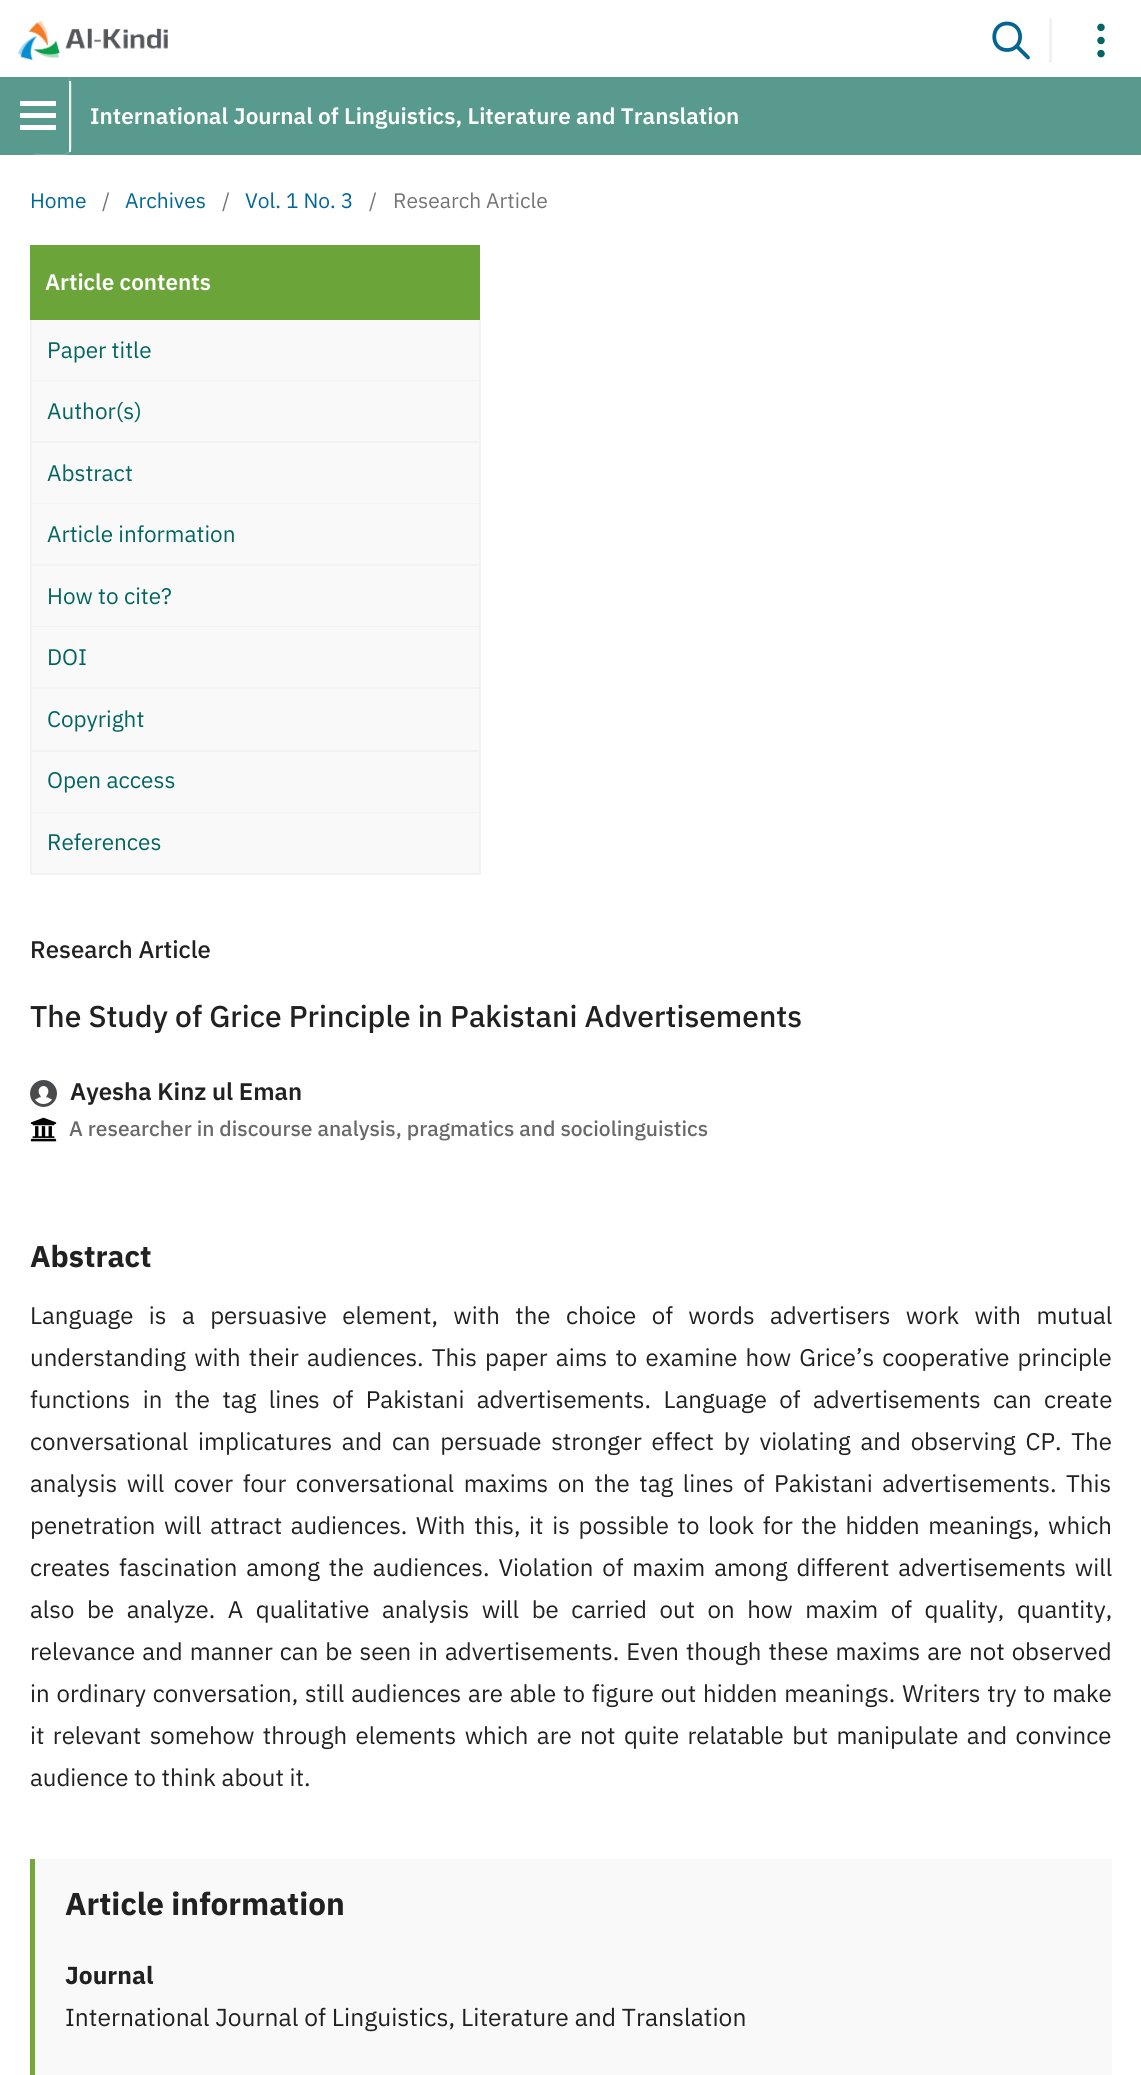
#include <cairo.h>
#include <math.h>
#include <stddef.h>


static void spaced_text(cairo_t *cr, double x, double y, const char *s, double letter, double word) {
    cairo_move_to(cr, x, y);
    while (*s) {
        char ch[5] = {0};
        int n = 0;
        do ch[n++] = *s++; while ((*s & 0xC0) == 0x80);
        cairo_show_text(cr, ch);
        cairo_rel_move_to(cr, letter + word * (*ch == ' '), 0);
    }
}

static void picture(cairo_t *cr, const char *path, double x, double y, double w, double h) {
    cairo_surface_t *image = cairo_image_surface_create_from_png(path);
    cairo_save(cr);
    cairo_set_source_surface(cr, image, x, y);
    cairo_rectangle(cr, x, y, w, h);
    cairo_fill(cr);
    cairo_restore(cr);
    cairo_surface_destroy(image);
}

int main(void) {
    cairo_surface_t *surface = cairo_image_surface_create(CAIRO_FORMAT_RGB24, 1141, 2075);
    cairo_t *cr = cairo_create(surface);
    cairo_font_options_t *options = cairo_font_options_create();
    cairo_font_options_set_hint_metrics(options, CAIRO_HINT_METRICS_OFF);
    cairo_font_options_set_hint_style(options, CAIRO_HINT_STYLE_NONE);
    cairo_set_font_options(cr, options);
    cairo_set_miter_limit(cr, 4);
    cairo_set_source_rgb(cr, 1, 1, 1);
    cairo_paint(cr);
    picture(cr, "img1.png", 18, 21, 150, 39);
    cairo_set_source_rgb(cr, 0.949, 0.949, 0.949);
    cairo_rectangle(cr, 1049, 18, 3, 45);
    cairo_fill(cr);
    cairo_new_path(cr);
    cairo_move_to(cr, 1016.5, 46);
    cairo_line_to(cr, 1028, 57.5);
    cairo_move_to(cr, 1007, 50);
    cairo_curve_to(cr, 990, 50, 990, 23.5, 1007, 23.5);
    cairo_curve_to(cr, 1024.5, 23.5, 1024.5, 50, 1007, 50);
    cairo_close_path(cr);
    cairo_set_source_rgb(cr, 0.008, 0.396, 0.58);
    cairo_set_line_width(cr, 3.8);
    cairo_set_line_cap(cr, CAIRO_LINE_CAP_ROUND);
    cairo_set_line_join(cr, CAIRO_LINE_JOIN_ROUND);
    cairo_stroke(cr);
    picture(cr, "img2.png", 1097, 23, 8, 35);
    cairo_set_source_rgb(cr, 0.345, 0.604, 0.553);
    cairo_rectangle(cr, 0, 77, 1141, 78);
    cairo_fill(cr);
    cairo_set_source_rgb(cr, 0.475, 0.682, 0.643);
    cairo_new_path(cr);
    cairo_move_to(cr, 32, 154);
    cairo_line_to(cr, 35, 155);
    cairo_line_to(cr, 64, 155);
    cairo_curve_to(cr, 68, 155, 72, 151, 72, 147);
    cairo_line_to(cr, 72, 85);
    cairo_curve_to(cr, 72, 82, 70, 79, 67, 77);
    cairo_curve_to(cr, 68, 78, 70, 80, 70, 82);
    cairo_line_to(cr, 70, 149);
    cairo_line_to(cr, 68, 152);
    cairo_line_to(cr, 65, 154);
    cairo_close_path(cr);
    cairo_fill(cr);
    cairo_set_source_rgb(cr, 0.949, 0.949, 0.949);
    cairo_rectangle(cr, 69, 81, 2, 71);
    cairo_fill(cr);
    cairo_set_source_rgb(cr, 1, 1, 1);
    cairo_rectangle(cr, 20, 125, 36, 5);
    cairo_fill(cr);
    cairo_rectangle(cr, 20, 101, 36, 5);
    cairo_fill(cr);
    cairo_rectangle(cr, 20, 113, 36, 5);
    cairo_fill(cr);
    cairo_select_font_face(cr, "IBM Plex Sans SemiBold", CAIRO_FONT_SLANT_NORMAL, CAIRO_FONT_WEIGHT_NORMAL);
    cairo_set_font_size(cr, 22.5);
    cairo_move_to(cr, 90, 124);
    cairo_show_text(cr, "International Journal of Linguistics, Literature and Translation");
    cairo_select_font_face(cr, "IBM Plex Sans", CAIRO_FONT_SLANT_NORMAL, CAIRO_FONT_WEIGHT_NORMAL);
    cairo_set_font_size(cr, 21);
    cairo_set_source_rgb(cr, 0, 0.404, 0.596);
    cairo_move_to(cr, 30, 208);
    cairo_show_text(cr, "Home");
    cairo_set_source_rgb(cr, 0.459, 0.459, 0.459);
    cairo_move_to(cr, 102, 208);
    cairo_show_text(cr, "/");
    cairo_set_source_rgb(cr, 0, 0.404, 0.596);
    cairo_move_to(cr, 125, 208);
    cairo_show_text(cr, "Archives");
    cairo_set_source_rgb(cr, 0.459, 0.459, 0.459);
    cairo_move_to(cr, 222, 208);
    cairo_show_text(cr, "/");
    cairo_set_source_rgb(cr, 0, 0.404, 0.596);
    cairo_move_to(cr, 245, 208);
    cairo_show_text(cr, "Vol. 1 No. 3");
    cairo_set_source_rgb(cr, 0.459, 0.459, 0.459);
    cairo_move_to(cr, 369, 208);
    cairo_show_text(cr, "/");
    cairo_move_to(cr, 393, 208);
    cairo_show_text(cr, "Research Article");
    cairo_set_source_rgb(cr, 0.42, 0.643, 0.224);
    cairo_rectangle(cr, 30, 245, 450, 75);
    cairo_fill(cr);
    cairo_select_font_face(cr, "IBM Plex Sans SemiBold", CAIRO_FONT_SLANT_NORMAL, CAIRO_FONT_WEIGHT_NORMAL);
    cairo_set_font_size(cr, 22.5);
    cairo_set_source_rgb(cr, 1, 1, 1);
    cairo_move_to(cr, 45, 290);
    cairo_show_text(cr, "Article contents");
    cairo_set_source_rgb(cr, 0.976, 0.976, 0.976);
    cairo_rectangle(cr, 32, 320, 447, 60);
    cairo_fill(cr);
    cairo_set_source_rgb(cr, 0.949, 0.949, 0.949);
    cairo_rectangle(cr, 479, 320, 2, 555);
    cairo_fill(cr);
    cairo_rectangle(cr, 30, 380, 450, 1);
    cairo_fill(cr);
    cairo_rectangle(cr, 30, 320, 2, 61);
    cairo_fill(cr);
    cairo_select_font_face(cr, "IBM Plex Sans", CAIRO_FONT_SLANT_NORMAL, CAIRO_FONT_WEIGHT_NORMAL);
    cairo_set_source_rgb(cr, 0.008, 0.396, 0.384);
    cairo_move_to(cr, 47, 358);
    cairo_show_text(cr, "Paper title");
    cairo_set_source_rgb(cr, 0.976, 0.976, 0.976);
    cairo_rectangle(cr, 32, 381, 447, 60);
    cairo_fill(cr);
    cairo_set_source_rgb(cr, 0.949, 0.949, 0.949);
    cairo_rectangle(cr, 30, 441, 450, 2);
    cairo_fill(cr);
    cairo_rectangle(cr, 30, 381, 2, 62);
    cairo_fill(cr);
    cairo_set_source_rgb(cr, 0.008, 0.396, 0.384);
    cairo_move_to(cr, 47, 419);
    cairo_show_text(cr, "Author(s)");
    cairo_set_source_rgb(cr, 0.976, 0.976, 0.976);
    cairo_rectangle(cr, 32, 443, 447, 60);
    cairo_fill(cr);
    cairo_set_source_rgb(cr, 0.949, 0.949, 0.949);
    cairo_rectangle(cr, 30, 503, 450, 1);
    cairo_fill(cr);
    cairo_rectangle(cr, 30, 443, 2, 61);
    cairo_fill(cr);
    cairo_set_source_rgb(cr, 0.008, 0.396, 0.384);
    cairo_move_to(cr, 47, 481);
    cairo_show_text(cr, "Abstract");
    cairo_set_source_rgb(cr, 0.976, 0.976, 0.976);
    cairo_rectangle(cr, 32, 504, 447, 60);
    cairo_fill(cr);
    cairo_set_source_rgb(cr, 0.949, 0.949, 0.949);
    cairo_rectangle(cr, 30, 564, 450, 2);
    cairo_fill(cr);
    cairo_rectangle(cr, 30, 504, 2, 62);
    cairo_fill(cr);
    cairo_set_source_rgb(cr, 0.008, 0.396, 0.384);
    cairo_move_to(cr, 47, 542);
    cairo_show_text(cr, "Article information");
    cairo_set_source_rgb(cr, 0.976, 0.976, 0.976);
    cairo_rectangle(cr, 32, 566, 447, 60);
    cairo_fill(cr);
    cairo_set_source_rgb(cr, 0.949, 0.949, 0.949);
    cairo_rectangle(cr, 30, 626, 450, 1);
    cairo_fill(cr);
    cairo_rectangle(cr, 30, 566, 2, 61);
    cairo_fill(cr);
    cairo_set_source_rgb(cr, 0.008, 0.396, 0.384);
    cairo_move_to(cr, 47, 604);
    cairo_show_text(cr, "How to cite?");
    cairo_set_source_rgb(cr, 0.976, 0.976, 0.976);
    cairo_rectangle(cr, 32, 627, 447, 60);
    cairo_fill(cr);
    cairo_set_source_rgb(cr, 0.949, 0.949, 0.949);
    cairo_rectangle(cr, 30, 687, 450, 2);
    cairo_fill(cr);
    cairo_rectangle(cr, 30, 627, 2, 62);
    cairo_fill(cr);
    cairo_set_source_rgb(cr, 0.008, 0.396, 0.384);
    cairo_move_to(cr, 47, 665);
    cairo_show_text(cr, "DOI");
    cairo_set_source_rgb(cr, 0.976, 0.976, 0.976);
    cairo_rectangle(cr, 32, 689, 447, 61);
    cairo_fill(cr);
    cairo_set_source_rgb(cr, 0.949, 0.949, 0.949);
    cairo_rectangle(cr, 30, 750, 450, 2);
    cairo_fill(cr);
    cairo_rectangle(cr, 30, 689, 2, 63);
    cairo_fill(cr);
    cairo_set_source_rgb(cr, 0.008, 0.396, 0.384);
    cairo_move_to(cr, 47, 727);
    cairo_show_text(cr, "Copyright");
    cairo_set_source_rgb(cr, 0.976, 0.976, 0.976);
    cairo_rectangle(cr, 32, 752, 447, 60);
    cairo_fill(cr);
    cairo_set_source_rgb(cr, 0.949, 0.949, 0.949);
    cairo_rectangle(cr, 30, 812, 450, 1);
    cairo_fill(cr);
    cairo_rectangle(cr, 30, 752, 2, 61);
    cairo_fill(cr);
    cairo_set_source_rgb(cr, 0.008, 0.396, 0.384);
    cairo_move_to(cr, 47, 788);
    cairo_show_text(cr, "Open access");
    cairo_set_source_rgb(cr, 0.976, 0.976, 0.976);
    cairo_rectangle(cr, 32, 813, 447, 60);
    cairo_fill(cr);
    cairo_set_source_rgb(cr, 0.949, 0.949, 0.949);
    cairo_rectangle(cr, 30, 873, 450, 2);
    cairo_fill(cr);
    cairo_rectangle(cr, 30, 813, 2, 62);
    cairo_fill(cr);
    cairo_set_source_rgb(cr, 0.008, 0.396, 0.384);
    cairo_move_to(cr, 47, 850);
    cairo_show_text(cr, "References");
    cairo_select_font_face(cr, "IBM Plex Sans Medium", CAIRO_FONT_SLANT_NORMAL, CAIRO_FONT_WEIGHT_NORMAL);
    cairo_set_font_size(cr, 24);
    cairo_set_source_rgb(cr, 0.129, 0.129, 0.129);
    cairo_move_to(cr, 30, 958);
    cairo_show_text(cr, "Research Article");
    cairo_set_font_size(cr, 30);
    cairo_move_to(cr, 30, 1027);
    cairo_show_text(cr, "The Study of Grice Principle in Pakistani Advertisements");
    picture(cr, "img3.png", 30, 1080, 27, 27);
    cairo_select_font_face(cr, "IBM Plex Sans SemiBold", CAIRO_FONT_SLANT_NORMAL, CAIRO_FONT_WEIGHT_NORMAL);
    cairo_set_font_size(cr, 24);
    cairo_move_to(cr, 70, 1100);
    cairo_show_text(cr, "Ayesha Kinz ul Eman");
    picture(cr, "img4.png", 30, 1117, 27, 25);
    cairo_select_font_face(cr, "IBM Plex Sans Medium", CAIRO_FONT_SLANT_NORMAL, CAIRO_FONT_WEIGHT_NORMAL);
    cairo_set_font_size(cr, 21);
    cairo_set_source_rgb(cr, 0.412, 0.412, 0.412);
    cairo_move_to(cr, 69, 1136);
    cairo_show_text(cr, "A researcher in discourse analysis, pragmatics and sociolinguistics");
    cairo_select_font_face(cr, "IBM Plex Sans", CAIRO_FONT_SLANT_NORMAL, CAIRO_FONT_WEIGHT_BOLD);
    cairo_set_font_size(cr, 30);
    cairo_set_source_rgb(cr, 0.129, 0.129, 0.129);
    cairo_move_to(cr, 30, 1267);
    cairo_show_text(cr, "Abstract");
    cairo_select_font_face(cr, "IBM Plex Sans", CAIRO_FONT_SLANT_NORMAL, CAIRO_FONT_WEIGHT_NORMAL);
    cairo_set_font_size(cr, 24);
    spaced_text(cr, 30, 1324, "Language is a persuasive element, with the choice of words advertisers work with mutual", 0, 9.75);
    spaced_text(cr, 30, 1366, "understanding with their audiences. This paper aims to examine how Grice’s cooperative principle", 0, 2.5);
    spaced_text(cr, 30, 1408, "functions in the tag lines of Pakistani advertisements. Language of advertisements can create", 0, 6.75);
    spaced_text(cr, 30, 1450, "conversational implicatures and can persuade stronger effect by violating and observing CP. The", 0, 4.1);
    spaced_text(cr, 30, 1492, "analysis will cover four conversational maxims on the tag lines of Pakistani advertisements. This", 0, 3.9);
    spaced_text(cr, 30, 1534, "penetration will attract audiences. With this, it is possible to look for the hidden meanings, which", 0, 3);
    spaced_text(cr, 30, 1576, "creates fascination among the audiences. Violation of maxim among different advertisements will", 0, 3.25);
    spaced_text(cr, 30, 1618, "also be analyze. A qualitative analysis will be carried out on how maxim of quality, quantity,", 0, 6.9);
    spaced_text(cr, 30, 1660, "relevance and manner can be seen in advertisements. Even though these maxims are not observed", 0, 1.4);
    spaced_text(cr, 30, 1702, "in ordinary conversation, still audiences are able to figure out hidden meanings. Writers try to make", 0, 1.2);
    spaced_text(cr, 30, 1744, "it relevant somehow through elements which are not quite relatable but manipulate and convince", 0, 2.75);
    cairo_move_to(cr, 30, 1786);
    cairo_show_text(cr, "audience to think about it.");
    cairo_set_source_rgb(cr, 0.973, 0.973, 0.973);
    cairo_rectangle(cr, 35, 1859, 1077, 216);
    cairo_fill(cr);
    cairo_set_source_rgb(cr, 0.455, 0.655, 0.227);
    cairo_rectangle(cr, 30, 1859, 5, 216);
    cairo_fill(cr);
    cairo_select_font_face(cr, "IBM Plex Sans", CAIRO_FONT_SLANT_NORMAL, CAIRO_FONT_WEIGHT_BOLD);
    cairo_set_font_size(cr, 31.5);
    cairo_set_source_rgb(cr, 0.129, 0.129, 0.129);
    cairo_move_to(cr, 65, 1915);
    cairo_show_text(cr, "Article information");
    cairo_set_font_size(cr, 24.6);
    cairo_move_to(cr, 65, 1984);
    cairo_show_text(cr, "Journal");
    cairo_select_font_face(cr, "IBM Plex Sans", CAIRO_FONT_SLANT_NORMAL, CAIRO_FONT_WEIGHT_NORMAL);
    cairo_move_to(cr, 65, 2026);
    cairo_show_text(cr, "International Journal of Linguistics, Literature and Translation");
    cairo_surface_write_to_png(surface, "page.png");
    cairo_font_options_destroy(options);
    cairo_destroy(cr);
    cairo_surface_destroy(surface);
    return 0;
}
